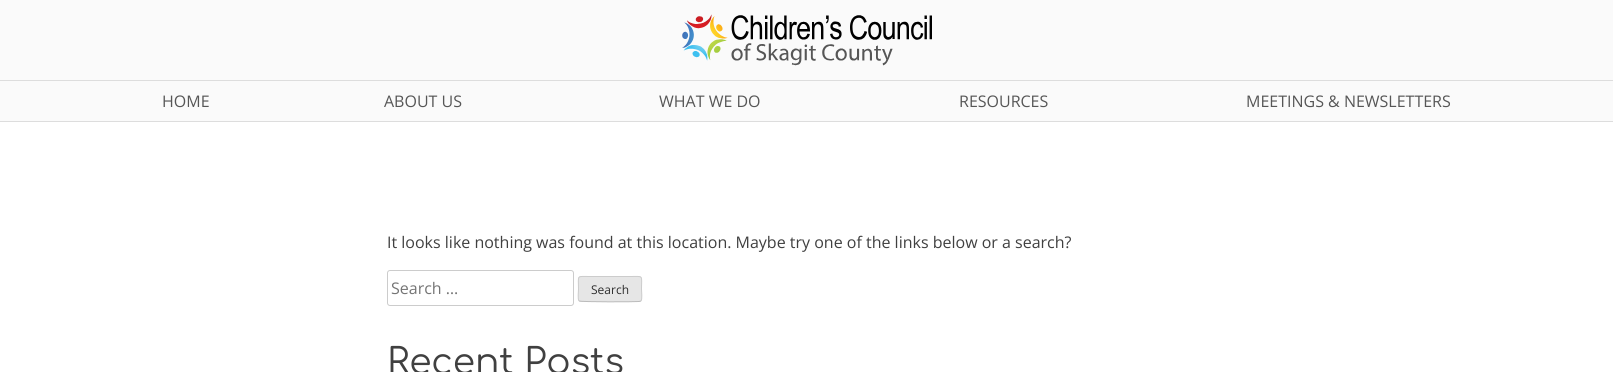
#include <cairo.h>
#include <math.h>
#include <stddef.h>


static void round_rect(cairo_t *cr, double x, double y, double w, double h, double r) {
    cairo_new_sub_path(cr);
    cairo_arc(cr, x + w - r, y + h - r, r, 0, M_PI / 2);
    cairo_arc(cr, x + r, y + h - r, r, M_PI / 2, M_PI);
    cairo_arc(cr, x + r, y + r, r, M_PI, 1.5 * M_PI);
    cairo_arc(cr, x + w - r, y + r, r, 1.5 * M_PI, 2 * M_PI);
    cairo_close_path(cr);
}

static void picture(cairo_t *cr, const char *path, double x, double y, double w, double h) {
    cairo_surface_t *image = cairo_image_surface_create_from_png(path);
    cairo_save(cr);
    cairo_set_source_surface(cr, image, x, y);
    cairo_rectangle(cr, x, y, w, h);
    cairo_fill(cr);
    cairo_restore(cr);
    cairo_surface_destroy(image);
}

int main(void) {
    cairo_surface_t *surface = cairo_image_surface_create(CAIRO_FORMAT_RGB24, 1613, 372);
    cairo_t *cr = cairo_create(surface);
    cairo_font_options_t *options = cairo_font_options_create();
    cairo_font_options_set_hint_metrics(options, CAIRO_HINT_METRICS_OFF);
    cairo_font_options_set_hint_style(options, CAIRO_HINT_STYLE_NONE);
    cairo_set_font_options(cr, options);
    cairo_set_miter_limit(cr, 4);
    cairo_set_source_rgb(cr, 0.98, 0.98, 0.98);
    cairo_paint(cr);
    picture(cr, "img1.png", 682, 14, 250, 52);
    cairo_set_source_rgb(cr, 0.867, 0.867, 0.867);
    cairo_rectangle(cr, 0, 80, 1613, 1);
    cairo_fill(cr);
    cairo_rectangle(cr, 0, 121, 1613, 1);
    cairo_fill(cr);
    cairo_select_font_face(cr, "Open Sans", CAIRO_FONT_SLANT_NORMAL, CAIRO_FONT_WEIGHT_NORMAL);
    cairo_set_font_size(cr, 16);
    cairo_set_source_rgb(cr, 0.337, 0.337, 0.337);
    cairo_move_to(cr, 162, 107);
    cairo_show_text(cr, "HOME");
    cairo_move_to(cr, 384, 107);
    cairo_show_text(cr, "ABOUT US");
    cairo_move_to(cr, 659, 107);
    cairo_show_text(cr, "WHAT WE DO");
    cairo_move_to(cr, 959, 107);
    cairo_show_text(cr, "RESOURCES");
    cairo_move_to(cr, 1246, 107);
    cairo_show_text(cr, "MEETINGS & NEWSLETTERS");
    cairo_set_source_rgb(cr, 1, 1, 1);
    cairo_rectangle(cr, 0, 122, 1613, 250);
    cairo_fill(cr);
    cairo_set_source_rgb(cr, 0.251, 0.251, 0.251);
    cairo_move_to(cr, 387, 248);
    cairo_show_text(cr, "It looks like nothing was found at this location. Maybe try one of the links below or a search?");
    round_rect(cr, 387.5, 270.5, 186, 35, 2.5);
    cairo_set_source_rgb(cr, 0.8, 0.8, 0.8);
    cairo_set_line_width(cr, 1);
    cairo_stroke(cr);
    cairo_set_source_rgb(cr, 0.459, 0.459, 0.459);
    cairo_move_to(cr, 391, 294);
    cairo_show_text(cr, "Search …");
    cairo_set_source_rgb(cr, 0.902, 0.902, 0.902);
    round_rect(cr, 578, 276, 64, 26, 3);
    cairo_fill(cr);
    cairo_new_path(cr);
    cairo_move_to(cr, 641, 301);
    cairo_line_to(cr, 639, 301.5);
    cairo_curve_to(cr, 634, 302, 580.5, 302, 579.5, 301);
    cairo_line_to(cr, 579, 301);
    cairo_set_source_rgb(cr, 0.733, 0.733, 0.733);
    cairo_stroke(cr);
    cairo_new_path(cr);
    cairo_move_to(cr, 579, 301);
    cairo_curve_to(cr, 577.5, 299, 578.5, 291.5, 578.5, 289);
    cairo_curve_to(cr, 578.5, 274.5, 576, 276.5, 590.5, 276.5);
    cairo_line_to(cr, 629.5, 276.5);
    cairo_curve_to(cr, 644, 276.5, 641.5, 274.5, 641.5, 289);
    cairo_curve_to(cr, 641.5, 291.5, 642.5, 299, 641, 301);
    cairo_set_source_rgb(cr, 0.8, 0.8, 0.8);
    cairo_stroke(cr);
    cairo_set_font_size(cr, 12);
    cairo_set_source_rgb(cr, 0.18, 0.18, 0.18);
    cairo_move_to(cr, 591, 294);
    cairo_show_text(cr, "Search");
    cairo_select_font_face(cr, "Comfortaa", CAIRO_FONT_SLANT_NORMAL, CAIRO_FONT_WEIGHT_NORMAL);
    cairo_set_font_size(cr, 36);
    cairo_set_source_rgb(cr, 0.251, 0.251, 0.251);
    cairo_move_to(cr, 387, 374);
    cairo_show_text(cr, "Recent Posts");
    cairo_surface_write_to_png(surface, "page.png");
    cairo_font_options_destroy(options);
    cairo_destroy(cr);
    cairo_surface_destroy(surface);
    return 0;
}
